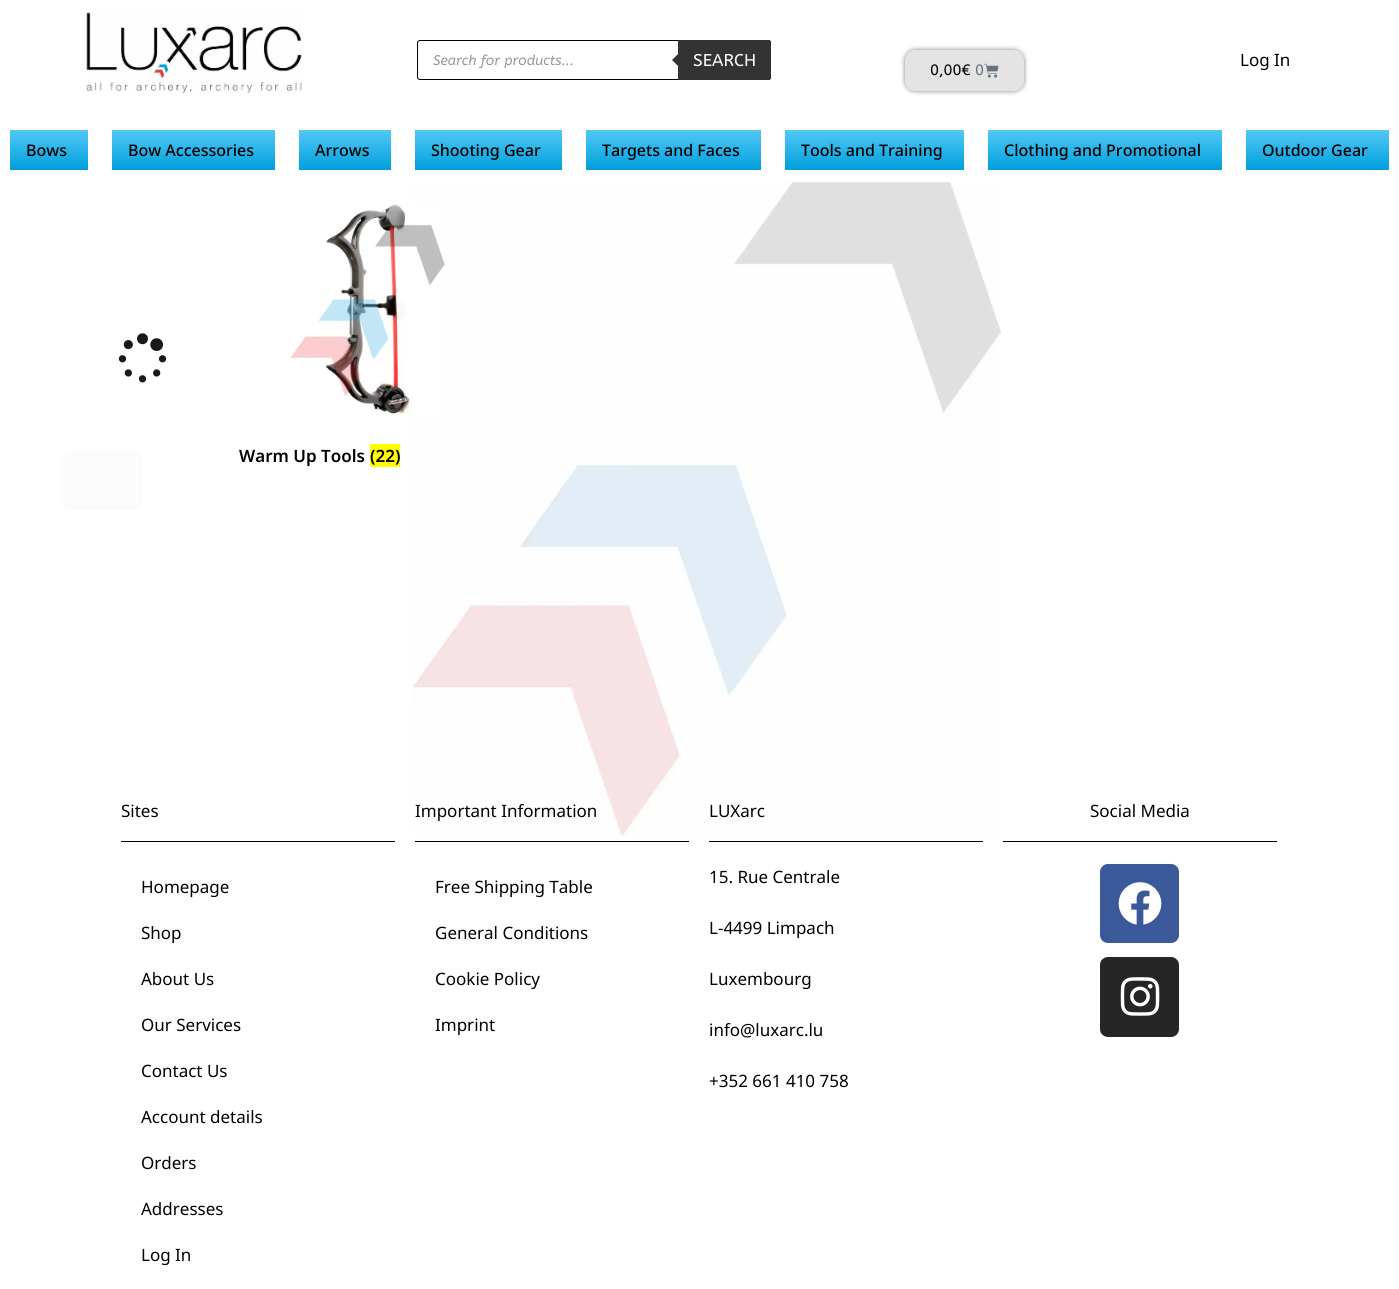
#include <cairo.h>
#include <math.h>
#include <stddef.h>


static void round_rect(cairo_t *cr, double x, double y, double w, double h, double r) {
    cairo_new_sub_path(cr);
    cairo_arc(cr, x + w - r, y + h - r, r, 0, M_PI / 2);
    cairo_arc(cr, x + r, y + h - r, r, M_PI / 2, M_PI);
    cairo_arc(cr, x + r, y + r, r, M_PI, 1.5 * M_PI);
    cairo_arc(cr, x + w - r, y + r, r, 1.5 * M_PI, 2 * M_PI);
    cairo_close_path(cr);
}

static void shadow(cairo_t *cr, double x, double y, double w, double h, double r, double blur, double alpha) {
    cairo_push_group_with_content(cr, CAIRO_CONTENT_ALPHA);
    cairo_set_operator(cr, CAIRO_OPERATOR_SOURCE);
    for (int i = 15; i >= -15 && fmin(w, h) + blur * i / 3 > 0; i -= 2) {
        double e = blur * i / 6;
        cairo_set_source_rgba(cr, 0, 0, 0, alpha * erfc((i - 1) / 8.5) / 2);
        round_rect(cr, x - e, y - e, w + 2 * e, h + 2 * e, fmax(0, fmin(r + e + blur * .6, fmin(w, h) / 2 + e)));
        cairo_fill(cr);
    }
    cairo_pattern_t *soft = cairo_pop_group(cr);
    cairo_mask(cr, soft);
    cairo_pattern_destroy(soft);
}

static void picture(cairo_t *cr, const char *path, double x, double y, double w, double h) {
    cairo_surface_t *image = cairo_image_surface_create_from_png(path);
    cairo_save(cr);
    cairo_set_source_surface(cr, image, x, y);
    cairo_rectangle(cr, x, y, w, h);
    cairo_fill(cr);
    cairo_restore(cr);
    cairo_surface_destroy(image);
}

int main(void) {
    cairo_surface_t *surface = cairo_image_surface_create(CAIRO_FORMAT_RGB24, 1399, 1289);
    cairo_t *cr = cairo_create(surface);
    cairo_font_options_t *options = cairo_font_options_create();
    cairo_font_options_set_hint_metrics(options, CAIRO_HINT_METRICS_OFF);
    cairo_font_options_set_hint_style(options, CAIRO_HINT_STYLE_NONE);
    cairo_set_font_options(cr, options);
    cairo_set_miter_limit(cr, 4);
    cairo_pattern_t *gradient;
    cairo_set_source_rgb(cr, 1, 1, 1);
    cairo_paint(cr);
    picture(cr, "img1.png", 413, 182, 588, 654);
    picture(cr, "img2.png", 86, 12, 216, 82);
    round_rect(cr, 417.5, 40.5, 353, 39, 2.5);
    cairo_set_source_rgb(cr, 0, 0, 0);
    cairo_set_line_width(cr, 1);
    cairo_stroke(cr);
    cairo_select_font_face(cr, "ABeeZee", CAIRO_FONT_SLANT_ITALIC, CAIRO_FONT_WEIGHT_NORMAL);
    cairo_set_font_size(cr, 14);
    cairo_set_source_rgb(cr, 0.6, 0.6, 0.6);
    cairo_move_to(cr, 433, 65);
    cairo_show_text(cr, "Search for products...");
    cairo_set_source_rgb(cr, 0.2, 0.2, 0.2);
    cairo_new_path(cr);
    cairo_move_to(cr, 678, 40);
    cairo_line_to(cr, 769, 40);
    cairo_curve_to(cr, 770, 40, 771, 41, 771, 42);
    cairo_line_to(cr, 771, 78);
    cairo_curve_to(cr, 771, 79, 770, 80, 769, 80);
    cairo_line_to(cr, 678, 80);
    cairo_close_path(cr);
    cairo_fill(cr);
    cairo_new_path(cr);
    cairo_move_to(cr, 680, 52);
    cairo_line_to(cr, 680, 68);
    cairo_line_to(cr, 672, 60);
    cairo_close_path(cr);
    cairo_fill(cr);
    cairo_select_font_face(cr, "ABeeZee", CAIRO_FONT_SLANT_NORMAL, CAIRO_FONT_WEIGHT_NORMAL);
    cairo_set_font_size(cr, 17);
    cairo_set_source_rgb(cr, 1, 1, 1);
    cairo_move_to(cr, 693, 66);
    cairo_show_text(cr, "SEARCH");
    cairo_set_source_rgb(cr, 0, 0, 0);
    shadow(cr, 905, 50, 119, 41, 10, 2.5, 0.5);
    cairo_set_source_rgb(cr, 0.894, 0.894, 0.894);
    round_rect(cr, 905.5, 50.5, 118, 40, 9.5);
    cairo_fill_preserve(cr);
    cairo_stroke(cr);
    cairo_set_font_size(cr, 15);
    cairo_set_source_rgb(cr, 0, 0, 0);
    cairo_move_to(cr, 930, 75);
    cairo_show_text(cr, "0,00€");
    cairo_set_source_rgb(cr, 0.412, 0.447, 0.49);
    cairo_move_to(cr, 975, 75);
    cairo_show_text(cr, "0");
    picture(cr, "img3.png", 984, 63, 15, 15);
    cairo_select_font_face(cr, "Noto Sans", CAIRO_FONT_SLANT_NORMAL, CAIRO_FONT_WEIGHT_NORMAL);
    cairo_set_font_size(cr, 17);
    cairo_set_source_rgb(cr, 0, 0, 0);
    cairo_move_to(cr, 1240, 66);
    cairo_show_text(cr, "Log In");
    gradient = cairo_pattern_create_linear(49, 130, 49, 170);
    cairo_pattern_add_color_stop_rgba(gradient, 0, 0.322, 0.784, 0.961, 1);
    cairo_pattern_add_color_stop_rgba(gradient, 1, 0, 0.627, 0.867, 1);
    cairo_set_source(cr, gradient);
    cairo_pattern_destroy(gradient);
    cairo_rectangle(cr, 10, 130, 78, 40);
    cairo_fill(cr);
    cairo_select_font_face(cr, "Noto Sans Medium", CAIRO_FONT_SLANT_NORMAL, CAIRO_FONT_WEIGHT_NORMAL);
    cairo_set_font_size(cr, 16);
    cairo_set_source_rgb(cr, 0, 0, 0);
    cairo_move_to(cr, 26, 156);
    cairo_show_text(cr, "Bows");
    gradient = cairo_pattern_create_linear(194, 130, 194, 170);
    cairo_pattern_add_color_stop_rgba(gradient, 0, 0.322, 0.784, 0.961, 1);
    cairo_pattern_add_color_stop_rgba(gradient, 1, 0, 0.627, 0.867, 1);
    cairo_set_source(cr, gradient);
    cairo_pattern_destroy(gradient);
    cairo_rectangle(cr, 112, 130, 163, 40);
    cairo_fill(cr);
    cairo_set_source_rgb(cr, 0, 0, 0);
    cairo_move_to(cr, 128, 156);
    cairo_show_text(cr, "Bow Accessories");
    gradient = cairo_pattern_create_linear(345, 130, 345, 170);
    cairo_pattern_add_color_stop_rgba(gradient, 0, 0.322, 0.784, 0.961, 1);
    cairo_pattern_add_color_stop_rgba(gradient, 1, 0, 0.627, 0.867, 1);
    cairo_set_source(cr, gradient);
    cairo_pattern_destroy(gradient);
    cairo_rectangle(cr, 299, 130, 92, 40);
    cairo_fill(cr);
    cairo_set_source_rgb(cr, 0, 0, 0);
    cairo_move_to(cr, 315, 156);
    cairo_show_text(cr, "Arrows");
    gradient = cairo_pattern_create_linear(489, 130, 489, 170);
    cairo_pattern_add_color_stop_rgba(gradient, 0, 0.322, 0.784, 0.961, 1);
    cairo_pattern_add_color_stop_rgba(gradient, 1, 0, 0.627, 0.867, 1);
    cairo_set_source(cr, gradient);
    cairo_pattern_destroy(gradient);
    cairo_rectangle(cr, 415, 130, 147, 40);
    cairo_fill(cr);
    cairo_set_source_rgb(cr, 0, 0, 0);
    cairo_move_to(cr, 431, 156);
    cairo_show_text(cr, "Shooting Gear");
    gradient = cairo_pattern_create_linear(674, 130, 674, 170);
    cairo_pattern_add_color_stop_rgba(gradient, 0, 0.322, 0.784, 0.961, 1);
    cairo_pattern_add_color_stop_rgba(gradient, 1, 0, 0.627, 0.867, 1);
    cairo_set_source(cr, gradient);
    cairo_pattern_destroy(gradient);
    cairo_rectangle(cr, 586, 130, 175, 40);
    cairo_fill(cr);
    cairo_set_source_rgb(cr, 0, 0, 0);
    cairo_move_to(cr, 602, 156);
    cairo_show_text(cr, "Targets and Faces");
    gradient = cairo_pattern_create_linear(875, 130, 875, 170);
    cairo_pattern_add_color_stop_rgba(gradient, 0, 0.322, 0.784, 0.961, 1);
    cairo_pattern_add_color_stop_rgba(gradient, 1, 0, 0.627, 0.867, 1);
    cairo_set_source(cr, gradient);
    cairo_pattern_destroy(gradient);
    cairo_rectangle(cr, 785, 130, 179, 40);
    cairo_fill(cr);
    cairo_set_source_rgb(cr, 0, 0, 0);
    cairo_move_to(cr, 801, 156);
    cairo_show_text(cr, "Tools and Training");
    gradient = cairo_pattern_create_linear(1105, 130, 1105, 170);
    cairo_pattern_add_color_stop_rgba(gradient, 0, 0.322, 0.784, 0.961, 1);
    cairo_pattern_add_color_stop_rgba(gradient, 1, 0, 0.627, 0.867, 1);
    cairo_set_source(cr, gradient);
    cairo_pattern_destroy(gradient);
    cairo_rectangle(cr, 988, 130, 234, 40);
    cairo_fill(cr);
    cairo_set_source_rgb(cr, 0, 0, 0);
    cairo_move_to(cr, 1004, 156);
    cairo_show_text(cr, "Clothing and Promotional");
    gradient = cairo_pattern_create_linear(1318, 130, 1318, 170);
    cairo_pattern_add_color_stop_rgba(gradient, 0, 0.322, 0.784, 0.961, 1);
    cairo_pattern_add_color_stop_rgba(gradient, 1, 0, 0.627, 0.867, 1);
    cairo_set_source(cr, gradient);
    cairo_pattern_destroy(gradient);
    cairo_rectangle(cr, 1246, 130, 143, 40);
    cairo_fill(cr);
    cairo_set_source_rgb(cr, 0, 0, 0);
    cairo_move_to(cr, 1262, 156);
    cairo_show_text(cr, "Outdoor Gear");
    cairo_set_source_rgb(cr, 0, 0, 0);
    shadow(cr, 65, 455, 75, 52, 4, 2.5, 0.5);
    cairo_set_source_rgb(cr, 0.894, 0.894, 0.894);
    round_rect(cr, 65, 455, 75, 52, 4);
    cairo_fill(cr);
    cairo_set_source_rgba(cr, 1, 1, 1, 0.9);
    cairo_rectangle(cr, 60, 450, 85, 62);
    cairo_fill(cr);
    picture(cr, "img4.png", 118, 333, 49, 50);
    picture(cr, "img5.png", 290, 204, 155, 211);
    cairo_select_font_face(cr, "Noto Sans SemiBold", CAIRO_FONT_SLANT_NORMAL, CAIRO_FONT_WEIGHT_NORMAL);
    cairo_set_font_size(cr, 17);
    cairo_set_source_rgb(cr, 0, 0, 0);
    cairo_move_to(cr, 239, 462);
    cairo_show_text(cr, "Warm Up Tools");
    cairo_set_source_rgb(cr, 1, 1, 0);
    cairo_rectangle(cr, 370, 444, 30, 23);
    cairo_fill(cr);
    cairo_set_source_rgb(cr, 0, 0, 0);
    cairo_move_to(cr, 370, 462);
    cairo_show_text(cr, "(22)");
    cairo_select_font_face(cr, "Noto Sans", CAIRO_FONT_SLANT_NORMAL, CAIRO_FONT_WEIGHT_NORMAL);
    cairo_move_to(cr, 121, 817);
    cairo_show_text(cr, "Sites");
    cairo_rectangle(cr, 121, 841, 274, 1);
    cairo_fill(cr);
    cairo_move_to(cr, 141, 893);
    cairo_show_text(cr, "Homepage");
    cairo_move_to(cr, 141, 939);
    cairo_show_text(cr, "Shop");
    cairo_move_to(cr, 141, 985);
    cairo_show_text(cr, "About Us");
    cairo_move_to(cr, 141, 1031);
    cairo_show_text(cr, "Our Services");
    cairo_move_to(cr, 141, 1077);
    cairo_show_text(cr, "Contact Us");
    cairo_move_to(cr, 141, 1123);
    cairo_show_text(cr, "Account details");
    cairo_move_to(cr, 141, 1169);
    cairo_show_text(cr, "Orders");
    cairo_move_to(cr, 141, 1215);
    cairo_show_text(cr, "Addresses");
    cairo_move_to(cr, 141, 1261);
    cairo_show_text(cr, "Log In");
    cairo_move_to(cr, 415, 817);
    cairo_show_text(cr, "Important Information");
    cairo_rectangle(cr, 415, 841, 274, 1);
    cairo_fill(cr);
    cairo_move_to(cr, 435, 893);
    cairo_show_text(cr, "Free Shipping Table");
    cairo_move_to(cr, 435, 939);
    cairo_show_text(cr, "General Conditions");
    cairo_move_to(cr, 435, 985);
    cairo_show_text(cr, "Cookie Policy");
    cairo_move_to(cr, 435, 1031);
    cairo_show_text(cr, "Imprint");
    cairo_move_to(cr, 709, 817);
    cairo_show_text(cr, "LUXarc");
    cairo_rectangle(cr, 709, 841, 274, 1);
    cairo_fill(cr);
    cairo_move_to(cr, 709, 883);
    cairo_show_text(cr, "15. Rue Centrale");
    cairo_move_to(cr, 709, 934);
    cairo_show_text(cr, "L-4499 Limpach");
    cairo_move_to(cr, 709, 985);
    cairo_show_text(cr, "Luxembourg");
    cairo_move_to(cr, 709, 1036);
    cairo_show_text(cr, "info@luxarc.lu");
    cairo_move_to(cr, 709, 1087);
    cairo_show_text(cr, "+352 661 410 758");
    cairo_move_to(cr, 1090, 817);
    cairo_show_text(cr, "Social Media");
    cairo_rectangle(cr, 1003, 841, 274, 1);
    cairo_fill(cr);
    cairo_set_source_rgb(cr, 0.231, 0.349, 0.596);
    round_rect(cr, 1100, 864, 79, 79, 8);
    cairo_fill(cr);
    picture(cr, "img6.png", 1118, 882, 44, 43);
    cairo_set_source_rgb(cr, 0.149, 0.149, 0.149);
    round_rect(cr, 1100, 957, 79, 80, 8);
    cairo_fill(cr);
    picture(cr, "img7.png", 1120, 977, 40, 39);
    cairo_surface_write_to_png(surface, "page.png");
    cairo_font_options_destroy(options);
    cairo_destroy(cr);
    cairo_surface_destroy(surface);
    return 0;
}
